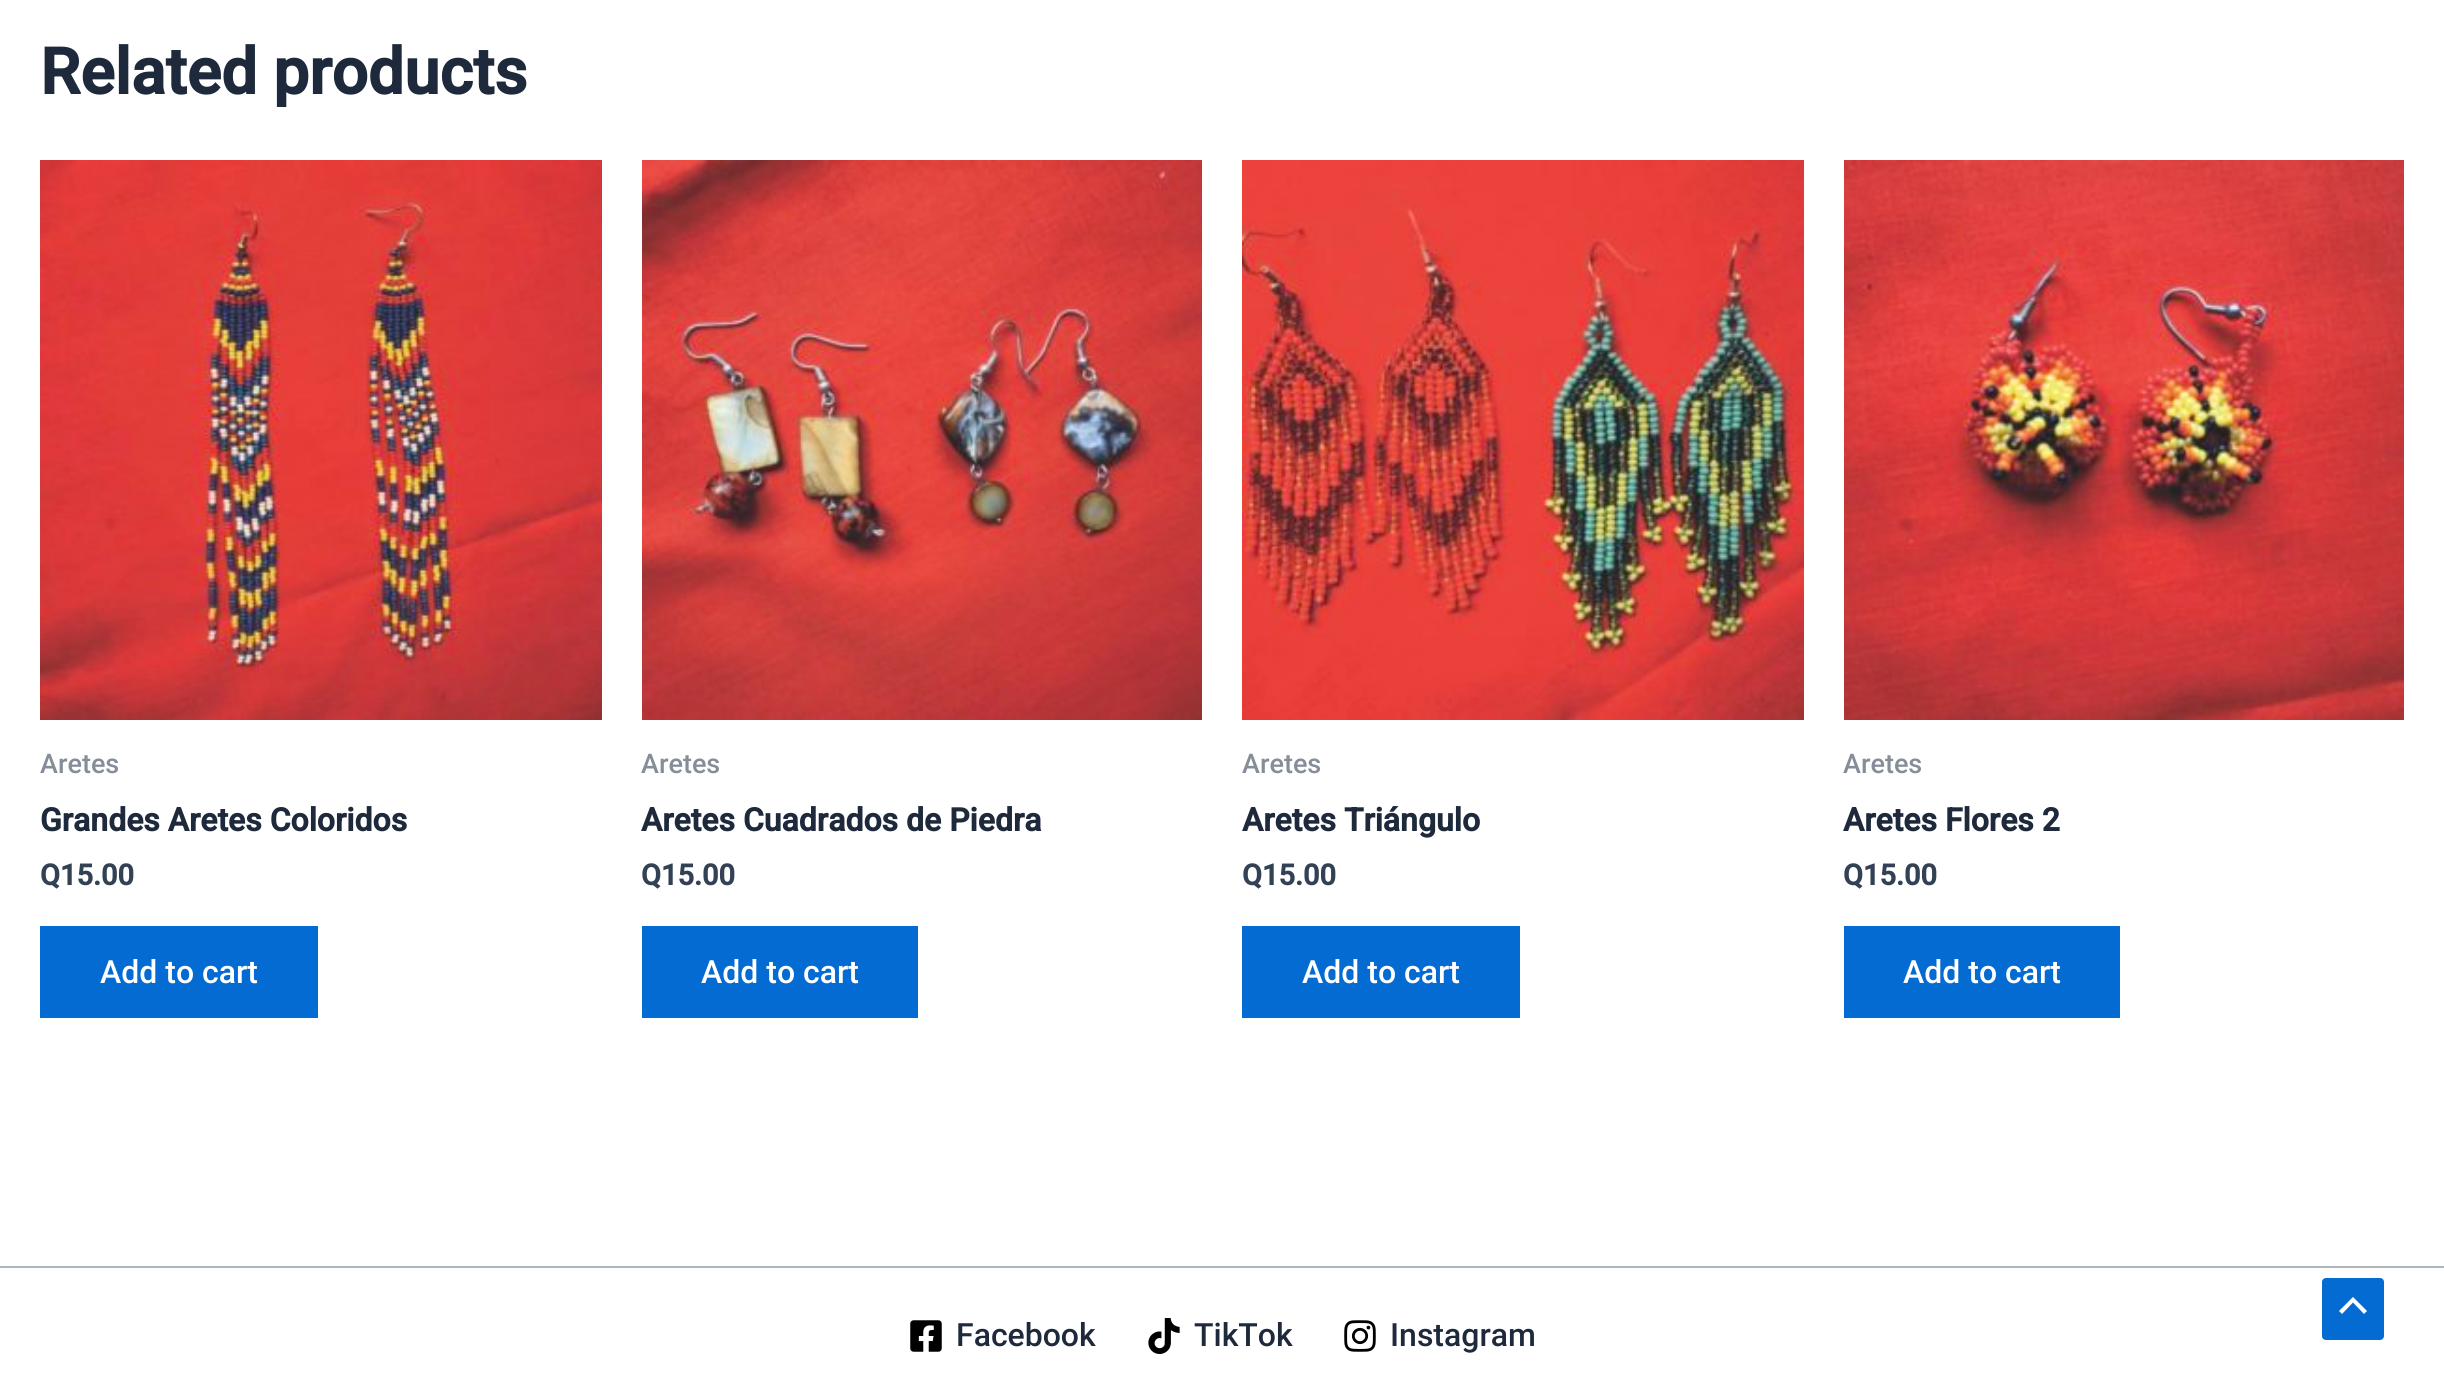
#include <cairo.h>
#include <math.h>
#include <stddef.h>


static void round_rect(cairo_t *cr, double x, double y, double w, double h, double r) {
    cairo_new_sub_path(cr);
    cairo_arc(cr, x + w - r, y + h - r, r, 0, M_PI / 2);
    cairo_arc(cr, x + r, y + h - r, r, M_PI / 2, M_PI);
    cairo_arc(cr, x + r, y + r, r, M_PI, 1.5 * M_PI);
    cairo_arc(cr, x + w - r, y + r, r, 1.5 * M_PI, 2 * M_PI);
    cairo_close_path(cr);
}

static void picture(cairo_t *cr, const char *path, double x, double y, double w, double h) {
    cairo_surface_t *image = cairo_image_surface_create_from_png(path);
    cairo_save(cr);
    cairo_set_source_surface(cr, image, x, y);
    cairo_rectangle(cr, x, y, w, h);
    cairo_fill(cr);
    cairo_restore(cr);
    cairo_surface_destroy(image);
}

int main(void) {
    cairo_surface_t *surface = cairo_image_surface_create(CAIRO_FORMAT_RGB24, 2444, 1400);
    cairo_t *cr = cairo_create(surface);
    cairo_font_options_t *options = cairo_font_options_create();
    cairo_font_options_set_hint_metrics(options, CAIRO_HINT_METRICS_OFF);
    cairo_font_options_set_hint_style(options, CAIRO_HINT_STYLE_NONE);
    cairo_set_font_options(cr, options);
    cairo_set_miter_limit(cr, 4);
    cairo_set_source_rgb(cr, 1, 1, 1);
    cairo_paint(cr);
    cairo_select_font_face(cr, "Roboto", CAIRO_FONT_SLANT_NORMAL, CAIRO_FONT_WEIGHT_BOLD);
    cairo_set_font_size(cr, 64);
    cairo_set_source_rgb(cr, 0.118, 0.161, 0.231);
    cairo_move_to(cr, 40, 94);
    cairo_show_text(cr, "Related products");
    picture(cr, "img1.png", 40, 160, 562, 560);
    cairo_select_font_face(cr, "Roboto Medium", CAIRO_FONT_SLANT_NORMAL, CAIRO_FONT_WEIGHT_NORMAL);
    cairo_set_font_size(cr, 27);
    cairo_set_source_rgb(cr, 0.522, 0.553, 0.6);
    cairo_move_to(cr, 40, 773);
    cairo_show_text(cr, "Aretes");
    cairo_select_font_face(cr, "Roboto", CAIRO_FONT_SLANT_NORMAL, CAIRO_FONT_WEIGHT_BOLD);
    cairo_set_font_size(cr, 32);
    cairo_set_source_rgb(cr, 0.118, 0.161, 0.231);
    cairo_move_to(cr, 40, 831);
    cairo_show_text(cr, "Grandes Aretes Coloridos");
    cairo_set_font_size(cr, 29);
    cairo_set_source_rgb(cr, 0.2, 0.255, 0.333);
    cairo_move_to(cr, 40, 885);
    cairo_show_text(cr, "Q15.00");
    cairo_set_source_rgb(cr, 0.016, 0.42, 0.824);
    cairo_rectangle(cr, 40, 926, 278, 92);
    cairo_fill(cr);
    cairo_select_font_face(cr, "Roboto Medium", CAIRO_FONT_SLANT_NORMAL, CAIRO_FONT_WEIGHT_NORMAL);
    cairo_set_font_size(cr, 32);
    cairo_set_source_rgb(cr, 1, 1, 1);
    cairo_move_to(cr, 100, 983);
    cairo_show_text(cr, "Add to cart");
    picture(cr, "img2.png", 642, 160, 560, 560);
    cairo_set_font_size(cr, 27);
    cairo_set_source_rgb(cr, 0.522, 0.553, 0.6);
    cairo_move_to(cr, 641, 773);
    cairo_show_text(cr, "Aretes");
    cairo_select_font_face(cr, "Roboto", CAIRO_FONT_SLANT_NORMAL, CAIRO_FONT_WEIGHT_BOLD);
    cairo_set_font_size(cr, 32);
    cairo_set_source_rgb(cr, 0.118, 0.161, 0.231);
    cairo_move_to(cr, 641, 831);
    cairo_show_text(cr, "Aretes Cuadrados de Piedra");
    cairo_set_font_size(cr, 29);
    cairo_set_source_rgb(cr, 0.2, 0.255, 0.333);
    cairo_move_to(cr, 641, 885);
    cairo_show_text(cr, "Q15.00");
    cairo_set_source_rgb(cr, 0.016, 0.42, 0.824);
    cairo_rectangle(cr, 642, 926, 276, 92);
    cairo_fill(cr);
    cairo_select_font_face(cr, "Roboto Medium", CAIRO_FONT_SLANT_NORMAL, CAIRO_FONT_WEIGHT_NORMAL);
    cairo_set_font_size(cr, 32);
    cairo_set_source_rgb(cr, 1, 1, 1);
    cairo_move_to(cr, 701, 983);
    cairo_show_text(cr, "Add to cart");
    picture(cr, "img3.png", 1242, 160, 562, 560);
    cairo_set_font_size(cr, 27);
    cairo_set_source_rgb(cr, 0.522, 0.553, 0.6);
    cairo_move_to(cr, 1242, 773);
    cairo_show_text(cr, "Aretes");
    cairo_select_font_face(cr, "Roboto", CAIRO_FONT_SLANT_NORMAL, CAIRO_FONT_WEIGHT_BOLD);
    cairo_set_font_size(cr, 32);
    cairo_set_source_rgb(cr, 0.118, 0.161, 0.231);
    cairo_move_to(cr, 1242, 831);
    cairo_show_text(cr, "Aretes Triángulo");
    cairo_set_font_size(cr, 29);
    cairo_set_source_rgb(cr, 0.2, 0.255, 0.333);
    cairo_move_to(cr, 1242, 885);
    cairo_show_text(cr, "Q15.00");
    cairo_set_source_rgb(cr, 0.016, 0.42, 0.824);
    cairo_rectangle(cr, 1242, 926, 278, 92);
    cairo_fill(cr);
    cairo_select_font_face(cr, "Roboto Medium", CAIRO_FONT_SLANT_NORMAL, CAIRO_FONT_WEIGHT_NORMAL);
    cairo_set_font_size(cr, 32);
    cairo_set_source_rgb(cr, 1, 1, 1);
    cairo_move_to(cr, 1302, 983);
    cairo_show_text(cr, "Add to cart");
    picture(cr, "img4.png", 1844, 160, 560, 560);
    cairo_set_font_size(cr, 27);
    cairo_set_source_rgb(cr, 0.522, 0.553, 0.6);
    cairo_move_to(cr, 1843, 773);
    cairo_show_text(cr, "Aretes");
    cairo_select_font_face(cr, "Roboto", CAIRO_FONT_SLANT_NORMAL, CAIRO_FONT_WEIGHT_BOLD);
    cairo_set_font_size(cr, 32);
    cairo_set_source_rgb(cr, 0.118, 0.161, 0.231);
    cairo_move_to(cr, 1843, 831);
    cairo_show_text(cr, "Aretes Flores 2");
    cairo_set_font_size(cr, 29);
    cairo_set_source_rgb(cr, 0.2, 0.255, 0.333);
    cairo_move_to(cr, 1843, 885);
    cairo_show_text(cr, "Q15.00");
    cairo_set_source_rgb(cr, 0.016, 0.42, 0.824);
    cairo_rectangle(cr, 1844, 926, 276, 92);
    cairo_fill(cr);
    cairo_select_font_face(cr, "Roboto Medium", CAIRO_FONT_SLANT_NORMAL, CAIRO_FONT_WEIGHT_NORMAL);
    cairo_set_font_size(cr, 32);
    cairo_set_source_rgb(cr, 1, 1, 1);
    cairo_move_to(cr, 1903, 983);
    cairo_show_text(cr, "Add to cart");
    cairo_set_source_rgb(cr, 0.678, 0.714, 0.745);
    cairo_rectangle(cr, 0, 1266, 2444, 2);
    cairo_fill(cr);
    picture(cr, "img5.png", 910, 1320, 32, 32);
    cairo_set_source_rgb(cr, 0.118, 0.161, 0.231);
    cairo_move_to(cr, 956, 1346);
    cairo_show_text(cr, "Facebook");
    picture(cr, "img6.png", 1148, 1318, 32, 36);
    cairo_move_to(cr, 1194, 1346);
    cairo_show_text(cr, "TikTok");
    picture(cr, "img7.png", 1344, 1320, 32, 32);
    cairo_move_to(cr, 1390, 1346);
    cairo_show_text(cr, "Instagram");
    cairo_set_source_rgb(cr, 0.016, 0.42, 0.824);
    round_rect(cr, 2322, 1278, 62, 62, 4);
    cairo_fill(cr);
    cairo_set_source_rgb(cr, 1, 1, 1);
    cairo_new_path(cr);
    cairo_move_to(cr, 2367, 1311);
    cairo_line_to(cr, 2353, 1297);
    cairo_line_to(cr, 2339, 1311);
    cairo_line_to(cr, 2342, 1314);
    cairo_line_to(cr, 2353, 1302.5);
    cairo_line_to(cr, 2364, 1314);
    cairo_close_path(cr);
    cairo_fill(cr);
    cairo_surface_write_to_png(surface, "page.png");
    cairo_font_options_destroy(options);
    cairo_destroy(cr);
    cairo_surface_destroy(surface);
    return 0;
}
